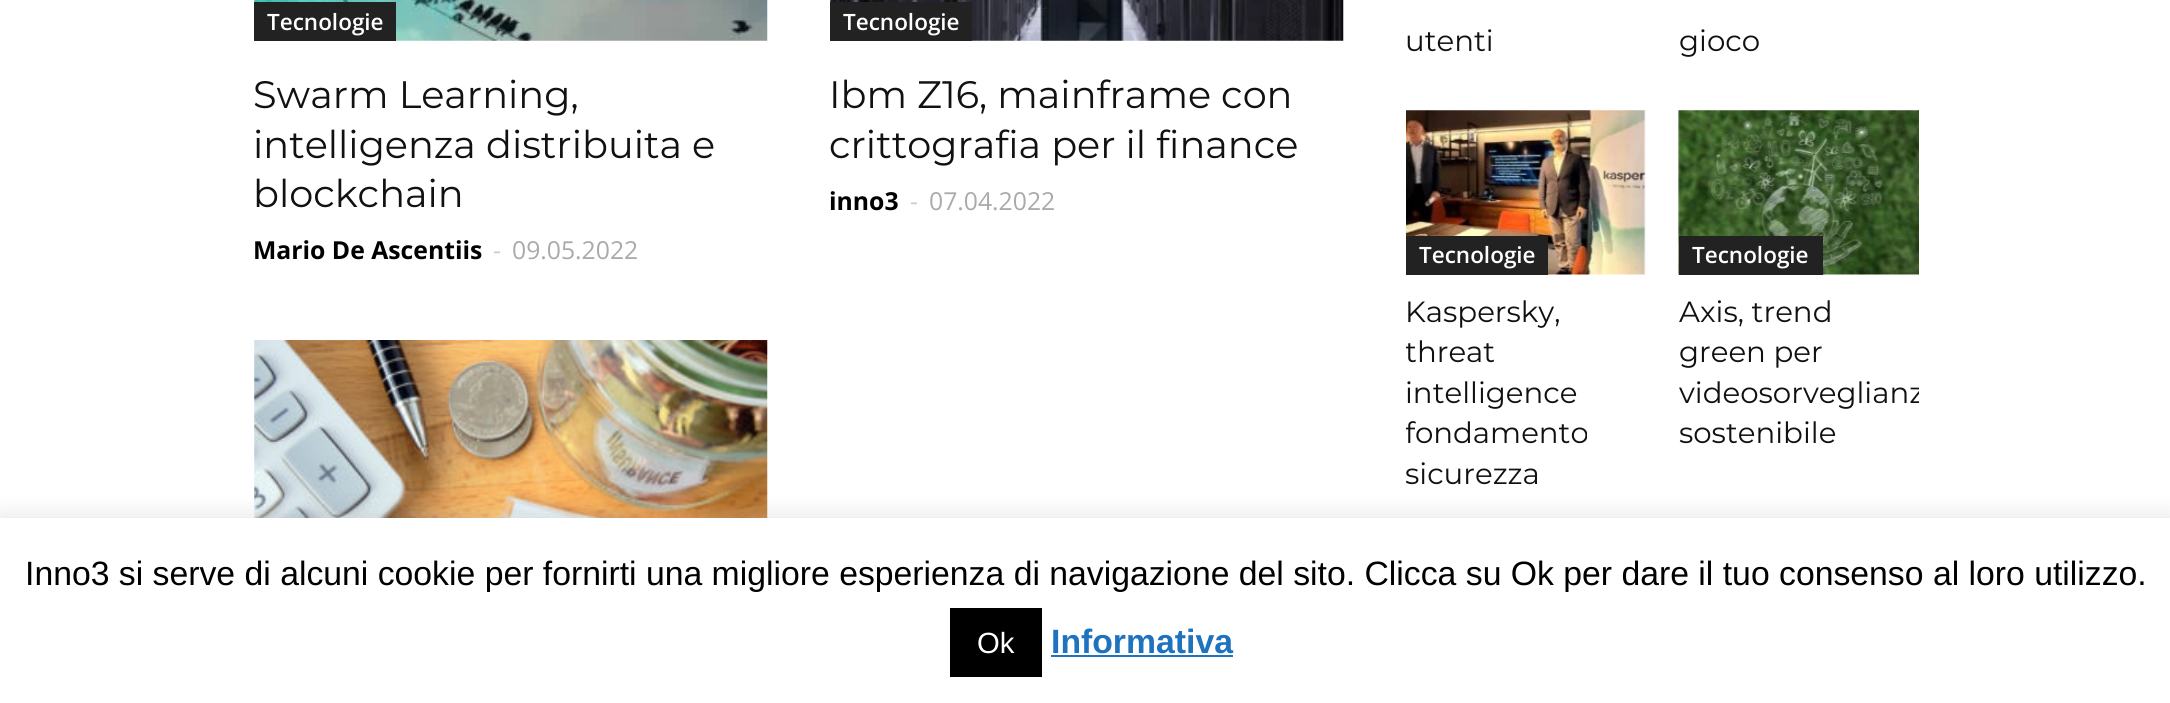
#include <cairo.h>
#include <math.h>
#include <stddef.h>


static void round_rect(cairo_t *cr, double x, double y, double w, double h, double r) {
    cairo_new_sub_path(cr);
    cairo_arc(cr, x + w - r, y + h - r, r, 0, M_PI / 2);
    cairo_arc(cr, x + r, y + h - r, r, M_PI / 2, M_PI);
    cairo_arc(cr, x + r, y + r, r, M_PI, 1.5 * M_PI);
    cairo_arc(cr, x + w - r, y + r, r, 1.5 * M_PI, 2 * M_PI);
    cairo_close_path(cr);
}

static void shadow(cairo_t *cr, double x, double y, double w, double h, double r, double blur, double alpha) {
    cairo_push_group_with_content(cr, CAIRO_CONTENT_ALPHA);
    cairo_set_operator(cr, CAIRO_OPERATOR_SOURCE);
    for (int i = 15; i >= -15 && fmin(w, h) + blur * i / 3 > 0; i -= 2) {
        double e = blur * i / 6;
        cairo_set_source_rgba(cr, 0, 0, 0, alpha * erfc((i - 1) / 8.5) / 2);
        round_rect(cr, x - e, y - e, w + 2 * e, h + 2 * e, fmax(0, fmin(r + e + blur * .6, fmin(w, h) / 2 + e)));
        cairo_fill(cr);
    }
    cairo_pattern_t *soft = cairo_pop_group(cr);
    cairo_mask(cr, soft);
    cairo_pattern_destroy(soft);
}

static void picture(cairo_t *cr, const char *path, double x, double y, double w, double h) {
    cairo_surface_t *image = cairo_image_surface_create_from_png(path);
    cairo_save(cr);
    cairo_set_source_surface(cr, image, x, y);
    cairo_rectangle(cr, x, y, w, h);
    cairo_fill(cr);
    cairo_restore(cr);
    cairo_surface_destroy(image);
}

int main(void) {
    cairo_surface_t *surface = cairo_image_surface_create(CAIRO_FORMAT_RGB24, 2170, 703);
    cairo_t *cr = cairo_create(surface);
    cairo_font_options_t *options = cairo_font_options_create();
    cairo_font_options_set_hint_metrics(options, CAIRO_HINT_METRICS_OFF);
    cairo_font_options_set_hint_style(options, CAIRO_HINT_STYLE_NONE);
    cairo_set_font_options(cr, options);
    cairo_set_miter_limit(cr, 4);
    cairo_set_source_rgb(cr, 1, 1, 1);
    cairo_paint(cr);
    picture(cr, "img1.png", 254, 0, 514, 41);
    cairo_set_source_rgb(cr, 0.133, 0.133, 0.133);
    cairo_rectangle(cr, 254, 2, 142, 39);
    cairo_fill(cr);
    cairo_select_font_face(cr, "Open Sans SemiBold", CAIRO_FONT_SLANT_NORMAL, CAIRO_FONT_WEIGHT_NORMAL);
    cairo_set_font_size(cr, 22.5);
    cairo_set_source_rgb(cr, 1, 1, 1);
    cairo_move_to(cr, 267, 30);
    cairo_show_text(cr, "Tecnologie");
    cairo_select_font_face(cr, "Montserrat Thin", CAIRO_FONT_SLANT_NORMAL, CAIRO_FONT_WEIGHT_NORMAL);
    cairo_set_font_size(cr, 38.25);
    cairo_set_source_rgb(cr, 0.067, 0.067, 0.067);
    cairo_move_to(cr, 253, 108);
    cairo_show_text(cr, "Swarm Learning,");
    cairo_move_to(cr, 253, 158);
    cairo_show_text(cr, "intelligenza distribuita e");
    cairo_move_to(cr, 253, 207);
    cairo_show_text(cr, "blockchain");
    cairo_select_font_face(cr, "Open Sans", CAIRO_FONT_SLANT_NORMAL, CAIRO_FONT_WEIGHT_BOLD);
    cairo_set_font_size(cr, 24.75);
    cairo_set_source_rgb(cr, 0, 0, 0);
    cairo_move_to(cr, 253, 259);
    cairo_show_text(cr, "Mario De Ascentiis");
    cairo_select_font_face(cr, "Open Sans", CAIRO_FONT_SLANT_NORMAL, CAIRO_FONT_WEIGHT_NORMAL);
    cairo_set_source_rgb(cr, 0.8, 0.8, 0.8);
    cairo_move_to(cr, 493, 259);
    cairo_show_text(cr, "-");
    cairo_set_source_rgb(cr, 0.667, 0.667, 0.667);
    cairo_move_to(cr, 512, 259);
    cairo_show_text(cr, "09.05.2022");
    picture(cr, "img2.png", 830, 0, 514, 41);
    cairo_set_source_rgb(cr, 0.133, 0.133, 0.133);
    cairo_rectangle(cr, 830, 2, 142, 39);
    cairo_fill(cr);
    cairo_select_font_face(cr, "Open Sans SemiBold", CAIRO_FONT_SLANT_NORMAL, CAIRO_FONT_WEIGHT_NORMAL);
    cairo_set_font_size(cr, 22.5);
    cairo_set_source_rgb(cr, 1, 1, 1);
    cairo_move_to(cr, 843, 30);
    cairo_show_text(cr, "Tecnologie");
    cairo_select_font_face(cr, "Montserrat Thin", CAIRO_FONT_SLANT_NORMAL, CAIRO_FONT_WEIGHT_NORMAL);
    cairo_set_font_size(cr, 38.25);
    cairo_set_source_rgb(cr, 0.067, 0.067, 0.067);
    cairo_move_to(cr, 829, 108);
    cairo_show_text(cr, "Ibm Z16, mainframe con");
    cairo_move_to(cr, 829, 158);
    cairo_show_text(cr, "crittografia per il finance");
    cairo_select_font_face(cr, "Open Sans", CAIRO_FONT_SLANT_NORMAL, CAIRO_FONT_WEIGHT_BOLD);
    cairo_set_font_size(cr, 24.75);
    cairo_set_source_rgb(cr, 0, 0, 0);
    cairo_move_to(cr, 829, 210);
    cairo_show_text(cr, "inno3");
    cairo_select_font_face(cr, "Open Sans", CAIRO_FONT_SLANT_NORMAL, CAIRO_FONT_WEIGHT_NORMAL);
    cairo_set_source_rgb(cr, 0.8, 0.8, 0.8);
    cairo_move_to(cr, 910, 210);
    cairo_show_text(cr, "-");
    cairo_set_source_rgb(cr, 0.667, 0.667, 0.667);
    cairo_move_to(cr, 929, 210);
    cairo_show_text(cr, "07.04.2022");
    picture(cr, "img3.png", 254, 340, 514, 178);
    cairo_select_font_face(cr, "Montserrat Thin", CAIRO_FONT_SLANT_NORMAL, CAIRO_FONT_WEIGHT_NORMAL);
    cairo_set_font_size(cr, 29.25);
    cairo_set_source_rgb(cr, 0.067, 0.067, 0.067);
    cairo_move_to(cr, 1405, 51);
    cairo_show_text(cr, "utenti");
    cairo_move_to(cr, 1679, 51);
    cairo_show_text(cr, "gioco");
    picture(cr, "img4.png", 1406, 110, 240, 165);
    cairo_set_source_rgb(cr, 0.133, 0.133, 0.133);
    cairo_rectangle(cr, 1406, 236, 142, 39);
    cairo_fill(cr);
    cairo_select_font_face(cr, "Open Sans SemiBold", CAIRO_FONT_SLANT_NORMAL, CAIRO_FONT_WEIGHT_NORMAL);
    cairo_set_font_size(cr, 22.5);
    cairo_set_source_rgb(cr, 1, 1, 1);
    cairo_move_to(cr, 1419, 263);
    cairo_show_text(cr, "Tecnologie");
    cairo_select_font_face(cr, "Montserrat Thin", CAIRO_FONT_SLANT_NORMAL, CAIRO_FONT_WEIGHT_NORMAL);
    cairo_set_font_size(cr, 29.25);
    cairo_set_source_rgb(cr, 0.067, 0.067, 0.067);
    cairo_move_to(cr, 1405, 322);
    cairo_show_text(cr, "Kaspersky,");
    cairo_save(cr);
    cairo_rectangle(cr, 1406, 0, 513, 596);
    cairo_clip(cr);
    cairo_move_to(cr, 1405, 362);
    cairo_show_text(cr, "threat");
    cairo_restore(cr);
    cairo_move_to(cr, 1405, 403);
    cairo_show_text(cr, "intelligence");
    cairo_save(cr);
    cairo_rectangle(cr, 1406, 0, 513, 596);
    cairo_clip(cr);
    cairo_move_to(cr, 1405, 443);
    cairo_show_text(cr, "fondamento");
    cairo_restore(cr);
    cairo_move_to(cr, 1405, 484);
    cairo_show_text(cr, "sicurezza");
    picture(cr, "img5.png", 1678, 110, 241, 165);
    cairo_set_source_rgb(cr, 0.133, 0.133, 0.133);
    cairo_rectangle(cr, 1679, 236, 144, 39);
    cairo_fill(cr);
    cairo_select_font_face(cr, "Open Sans SemiBold", CAIRO_FONT_SLANT_NORMAL, CAIRO_FONT_WEIGHT_NORMAL);
    cairo_set_font_size(cr, 22.5);
    cairo_set_source_rgb(cr, 1, 1, 1);
    cairo_move_to(cr, 1692, 263);
    cairo_show_text(cr, "Tecnologie");
    cairo_select_font_face(cr, "Montserrat Thin", CAIRO_FONT_SLANT_NORMAL, CAIRO_FONT_WEIGHT_NORMAL);
    cairo_set_font_size(cr, 29.25);
    cairo_set_source_rgb(cr, 0.067, 0.067, 0.067);
    cairo_move_to(cr, 1679, 322);
    cairo_show_text(cr, "Axis, trend");
    cairo_move_to(cr, 1679, 362);
    cairo_show_text(cr, "green per");
    cairo_save(cr);
    cairo_rectangle(cr, 1406, 0, 513, 596);
    cairo_clip(cr);
    cairo_move_to(cr, 1679, 403);
    cairo_show_text(cr, "videosorveglianz");
    cairo_restore(cr);
    cairo_move_to(cr, 1679, 443);
    cairo_show_text(cr, "sostenibile");
    cairo_set_source_rgb(cr, 0.675, 0.671, 0.671);
    shadow(cr, 0, 515, 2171, 187, 0, 11, 0.3);
    cairo_set_source_rgb(cr, 1, 1, 1);
    cairo_rectangle(cr, 0, 518, 2170, 185);
    cairo_fill(cr);
    cairo_select_font_face(cr, "Liberation Sans", CAIRO_FONT_SLANT_NORMAL, CAIRO_FONT_WEIGHT_NORMAL);
    cairo_set_font_size(cr, 33.75);
    cairo_set_source_rgb(cr, 0, 0, 0);
    cairo_move_to(cr, 25, 585);
    cairo_show_text(cr, "Inno3 si serve di alcuni cookie per fornirti una migliore esperienza di navigazione del sito. Clicca su Ok per dare il tuo consenso al loro utilizzo.");
    cairo_rectangle(cr, 950, 608, 92, 69);
    cairo_fill(cr);
    cairo_set_font_size(cr, 29.25);
    cairo_set_source_rgb(cr, 1, 1, 1);
    cairo_move_to(cr, 977, 653);
    cairo_show_text(cr, "Ok");
    cairo_select_font_face(cr, "Liberation Sans", CAIRO_FONT_SLANT_NORMAL, CAIRO_FONT_WEIGHT_BOLD);
    cairo_set_font_size(cr, 33.75);
    cairo_set_source_rgb(cr, 0.118, 0.451, 0.745);
    cairo_move_to(cr, 1051, 653);
    cairo_show_text(cr, "Informativa");
    cairo_rectangle(cr, 1051, 655, 182, 2);
    cairo_fill(cr);
    cairo_surface_write_to_png(surface, "page.png");
    cairo_font_options_destroy(options);
    cairo_destroy(cr);
    cairo_surface_destroy(surface);
    return 0;
}
